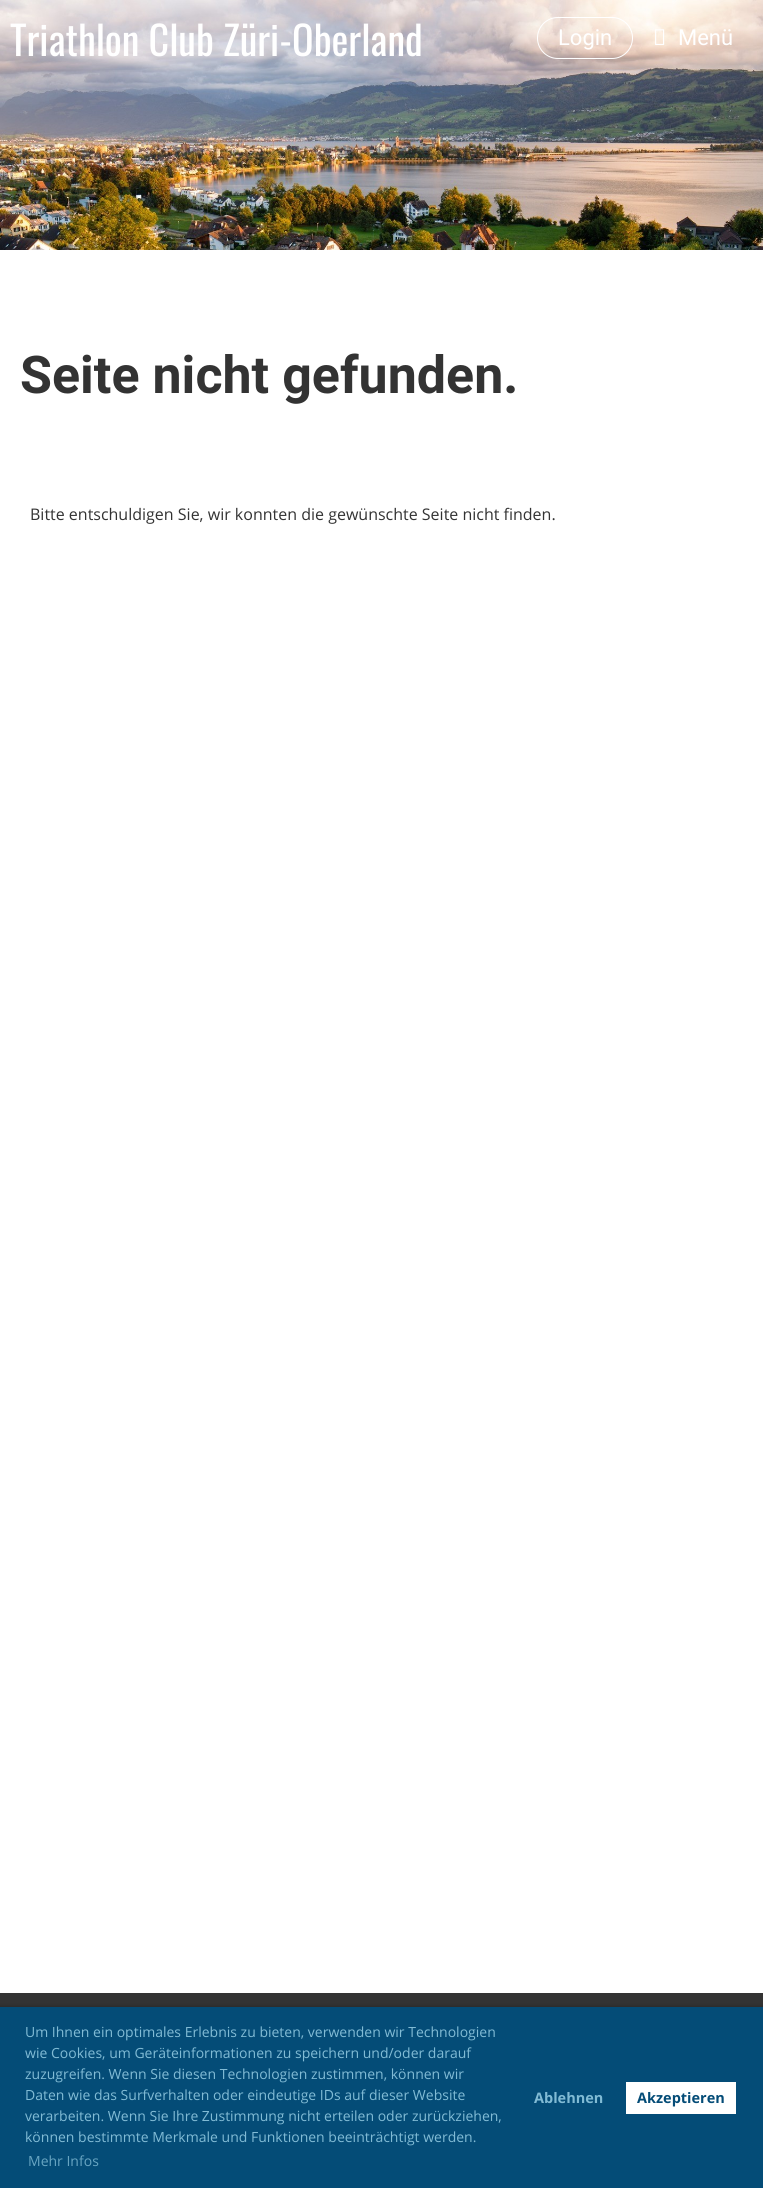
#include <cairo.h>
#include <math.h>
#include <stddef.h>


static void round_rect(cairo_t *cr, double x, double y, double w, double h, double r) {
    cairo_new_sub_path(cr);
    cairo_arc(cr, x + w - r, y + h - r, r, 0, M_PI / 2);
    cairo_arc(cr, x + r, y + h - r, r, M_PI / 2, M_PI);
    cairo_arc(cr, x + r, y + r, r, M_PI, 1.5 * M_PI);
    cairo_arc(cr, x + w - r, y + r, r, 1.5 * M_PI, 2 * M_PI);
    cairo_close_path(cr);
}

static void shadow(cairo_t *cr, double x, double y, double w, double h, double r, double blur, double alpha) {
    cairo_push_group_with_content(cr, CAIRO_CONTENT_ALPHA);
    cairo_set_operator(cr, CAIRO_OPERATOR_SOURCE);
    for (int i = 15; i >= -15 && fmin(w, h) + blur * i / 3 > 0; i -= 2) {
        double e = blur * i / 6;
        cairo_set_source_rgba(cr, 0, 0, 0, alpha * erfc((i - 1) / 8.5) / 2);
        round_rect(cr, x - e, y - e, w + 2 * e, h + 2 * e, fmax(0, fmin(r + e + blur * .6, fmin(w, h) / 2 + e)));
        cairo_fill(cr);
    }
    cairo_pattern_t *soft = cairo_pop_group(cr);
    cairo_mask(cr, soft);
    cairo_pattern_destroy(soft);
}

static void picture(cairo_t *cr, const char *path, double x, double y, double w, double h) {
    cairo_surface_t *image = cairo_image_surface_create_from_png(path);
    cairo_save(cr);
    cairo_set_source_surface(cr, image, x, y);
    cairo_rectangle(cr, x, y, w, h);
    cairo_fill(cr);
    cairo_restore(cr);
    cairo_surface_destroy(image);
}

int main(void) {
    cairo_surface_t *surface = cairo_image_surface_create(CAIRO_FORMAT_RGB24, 763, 2188);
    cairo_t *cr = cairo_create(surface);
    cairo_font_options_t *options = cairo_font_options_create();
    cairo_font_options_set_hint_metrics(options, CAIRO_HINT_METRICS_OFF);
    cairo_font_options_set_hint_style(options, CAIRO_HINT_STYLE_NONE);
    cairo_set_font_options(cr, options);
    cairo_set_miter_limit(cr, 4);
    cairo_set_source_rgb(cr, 1, 1, 1);
    cairo_paint(cr);
    picture(cr, "img2.png", 0, 0, 763, 250);
    cairo_select_font_face(cr, "Oswald", CAIRO_FONT_SLANT_NORMAL, CAIRO_FONT_WEIGHT_NORMAL);
    cairo_set_font_size(cr, 40);
    cairo_set_source_rgb(cr, 1, 1, 1);
    cairo_move_to(cr, 10, 56);
    cairo_show_text(cr, "Triathlon Club Züri-Oberland");
    round_rect(cr, 537.5, 17.5, 95, 41, 20.5);
    cairo_set_line_width(cr, 1);
    cairo_stroke(cr);
    cairo_select_font_face(cr, "Roboto", CAIRO_FONT_SLANT_NORMAL, CAIRO_FONT_WEIGHT_NORMAL);
    cairo_set_font_size(cr, 22);
    cairo_move_to(cr, 558, 45);
    cairo_show_text(cr, "Login");
    picture(cr, "img1.png", 655, 29, 10, 16);
    cairo_move_to(cr, 678, 45);
    cairo_show_text(cr, "Menü");
    cairo_select_font_face(cr, "Roboto", CAIRO_FONT_SLANT_NORMAL, CAIRO_FONT_WEIGHT_BOLD);
    cairo_set_font_size(cr, 52);
    cairo_set_source_rgb(cr, 0.2, 0.2, 0.2);
    cairo_move_to(cr, 20, 393);
    cairo_show_text(cr, "Seite nicht gefunden.");
    cairo_select_font_face(cr, "Open Sans", CAIRO_FONT_SLANT_NORMAL, CAIRO_FONT_WEIGHT_NORMAL);
    cairo_set_font_size(cr, 16);
    cairo_move_to(cr, 30, 520);
    cairo_show_text(cr, "Bitte entschuldigen Sie, wir konnten die gewünschte Seite nicht finden.");
    cairo_rectangle(cr, 0, 1993, 763, 14);
    cairo_fill(cr);
    cairo_set_source_rgb(cr, 0, 0, 0);
    shadow(cr, 0, 2007, 763, 181, 0, 2.5, 0.3);
    cairo_set_source_rgb(cr, 0.016, 0.298, 0.467);
    cairo_rectangle(cr, 0, 2007, 763, 181);
    cairo_fill(cr);
    cairo_set_font_size(cr, 14);
    cairo_set_source_rgb(cr, 0.506, 0.733, 0.835);
    cairo_move_to(cr, 25, 2037);
    cairo_show_text(cr, "Um Ihnen ein optimales Erlebnis zu bieten, verwenden wir Technologien");
    cairo_move_to(cr, 25, 2058);
    cairo_show_text(cr, "wie Cookies, um Geräteinformationen zu speichern und/oder darauf");
    cairo_move_to(cr, 25, 2079);
    cairo_show_text(cr, "zuzugreifen. Wenn Sie diesen Technologien zustimmen, können wir");
    cairo_move_to(cr, 25, 2100);
    cairo_show_text(cr, "Daten wie das Surfverhalten oder eindeutige IDs auf dieser Website");
    cairo_move_to(cr, 25, 2121);
    cairo_show_text(cr, "verarbeiten. Wenn Sie Ihre Zustimmung nicht erteilen oder zurückziehen,");
    cairo_move_to(cr, 25, 2142);
    cairo_show_text(cr, "können bestimmte Merkmale und Funktionen beeinträchtigt werden.");
    cairo_set_source_rgb(cr, 0.408, 0.647, 0.761);
    cairo_move_to(cr, 28, 2166);
    cairo_show_text(cr, "Mehr Infos");
    cairo_select_font_face(cr, "Open Sans", CAIRO_FONT_SLANT_NORMAL, CAIRO_FONT_WEIGHT_BOLD);
    cairo_set_font_size(cr, 14.5);
    cairo_set_source_rgb(cr, 0.506, 0.733, 0.835);
    cairo_move_to(cr, 534, 2103);
    cairo_show_text(cr, "Ablehnen");
    cairo_set_source_rgb(cr, 1, 1, 1);
    cairo_rectangle(cr, 626, 2082, 110, 32);
    cairo_fill(cr);
    cairo_set_source_rgb(cr, 0.016, 0.298, 0.467);
    cairo_move_to(cr, 637, 2103);
    cairo_show_text(cr, "Akzeptieren");
    cairo_surface_write_to_png(surface, "page.png");
    cairo_font_options_destroy(options);
    cairo_destroy(cr);
    cairo_surface_destroy(surface);
    return 0;
}
